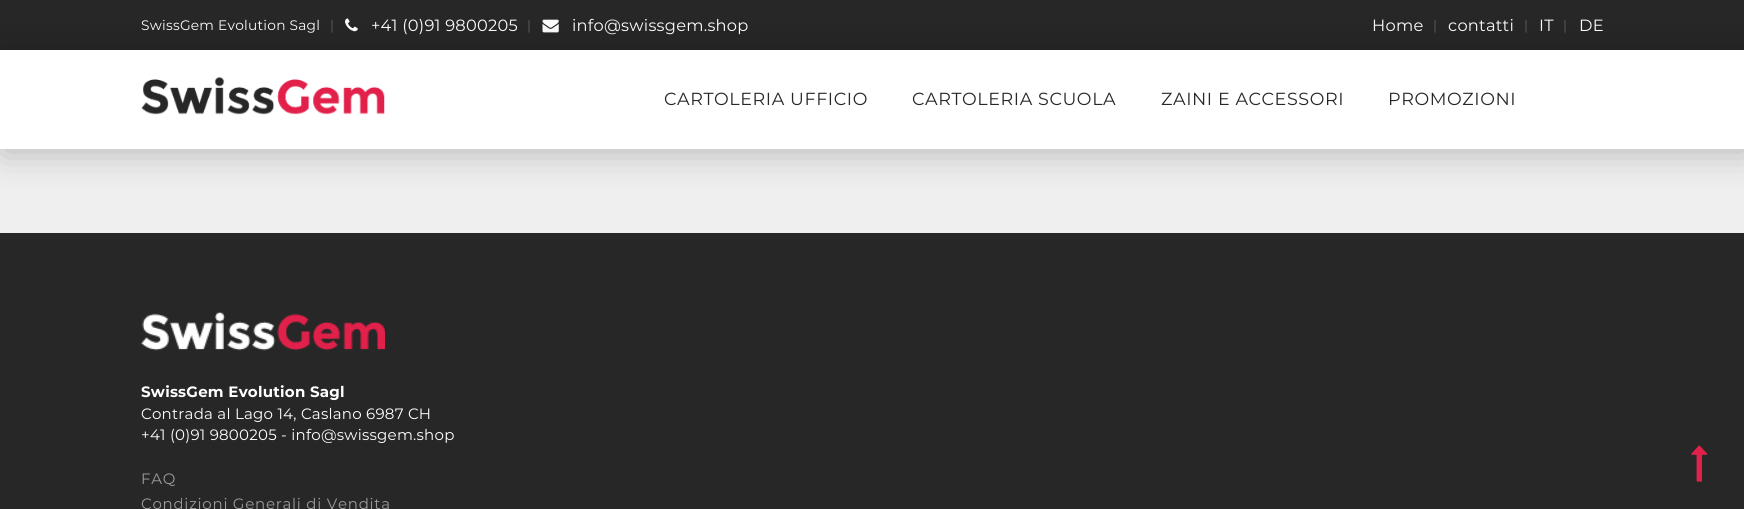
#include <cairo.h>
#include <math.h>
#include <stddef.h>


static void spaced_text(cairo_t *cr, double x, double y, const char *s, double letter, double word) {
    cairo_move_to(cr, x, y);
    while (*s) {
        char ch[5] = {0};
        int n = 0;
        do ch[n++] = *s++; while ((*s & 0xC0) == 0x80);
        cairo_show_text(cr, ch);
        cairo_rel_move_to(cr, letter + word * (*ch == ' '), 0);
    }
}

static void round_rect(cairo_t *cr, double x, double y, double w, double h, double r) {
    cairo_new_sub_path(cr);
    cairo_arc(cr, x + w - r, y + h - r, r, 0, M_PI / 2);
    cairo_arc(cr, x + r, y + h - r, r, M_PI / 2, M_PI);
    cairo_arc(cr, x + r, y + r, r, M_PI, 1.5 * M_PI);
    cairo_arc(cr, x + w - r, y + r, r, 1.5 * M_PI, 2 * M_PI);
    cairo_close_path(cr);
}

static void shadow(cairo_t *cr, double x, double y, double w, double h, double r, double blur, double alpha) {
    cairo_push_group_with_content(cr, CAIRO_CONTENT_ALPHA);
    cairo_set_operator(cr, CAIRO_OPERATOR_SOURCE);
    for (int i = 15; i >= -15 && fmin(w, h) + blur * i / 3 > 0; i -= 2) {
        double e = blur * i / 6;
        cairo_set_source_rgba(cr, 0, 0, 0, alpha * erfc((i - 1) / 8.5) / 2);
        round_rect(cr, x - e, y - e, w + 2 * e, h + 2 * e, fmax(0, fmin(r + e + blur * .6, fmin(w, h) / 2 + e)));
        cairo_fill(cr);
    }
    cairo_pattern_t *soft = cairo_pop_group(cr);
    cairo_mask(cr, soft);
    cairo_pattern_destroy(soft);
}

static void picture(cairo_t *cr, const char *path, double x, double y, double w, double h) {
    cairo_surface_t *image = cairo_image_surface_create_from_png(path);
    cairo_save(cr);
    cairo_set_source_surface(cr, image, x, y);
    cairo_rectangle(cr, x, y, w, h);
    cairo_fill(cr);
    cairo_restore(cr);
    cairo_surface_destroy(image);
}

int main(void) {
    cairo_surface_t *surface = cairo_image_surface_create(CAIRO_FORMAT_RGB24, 1744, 509);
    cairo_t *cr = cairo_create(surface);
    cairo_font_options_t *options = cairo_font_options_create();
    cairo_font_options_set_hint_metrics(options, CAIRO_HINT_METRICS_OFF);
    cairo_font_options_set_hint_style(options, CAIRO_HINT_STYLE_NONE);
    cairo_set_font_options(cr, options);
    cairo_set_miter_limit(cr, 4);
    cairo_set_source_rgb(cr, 0.937, 0.937, 0.937);
    cairo_paint(cr);
    cairo_set_source_rgb(cr, 0.153, 0.153, 0.153);
    cairo_rectangle(cr, 0, 0, 1744, 50);
    cairo_fill(cr);
    cairo_select_font_face(cr, "Montserrat", CAIRO_FONT_SLANT_NORMAL, CAIRO_FONT_WEIGHT_NORMAL);
    cairo_set_font_size(cr, 13.75);
    cairo_set_source_rgb(cr, 1, 1, 1);
    spaced_text(cr, 141, 30, "SwissGem Evolution Sagl", 0.25, 0);
    cairo_set_source_rgb(cr, 0.365, 0.365, 0.365);
    spaced_text(cr, 330, 30, "|", 0.25, 0);
    picture(cr, "img1.png", 345, 18, 13, 14);
    cairo_set_font_size(cr, 16.25);
    cairo_set_source_rgb(cr, 1, 1, 1);
    spaced_text(cr, 371, 31, "+41 (0)91 9800205", 0.25, 0);
    cairo_set_font_size(cr, 13.75);
    cairo_set_source_rgb(cr, 0.365, 0.365, 0.365);
    spaced_text(cr, 527, 30, "|", 0.25, 0);
    picture(cr, "img2.png", 542, 19, 17, 14);
    cairo_set_font_size(cr, 16.25);
    cairo_set_source_rgb(cr, 1, 1, 1);
    spaced_text(cr, 572, 31, "info@swissgem.shop", 0.25, 0);
    spaced_text(cr, 1372, 31, "Home", 0.25, 0);
    cairo_set_font_size(cr, 13.75);
    cairo_set_source_rgb(cr, 0.365, 0.365, 0.365);
    spaced_text(cr, 1433, 30, "|", 0.25, 0);
    cairo_set_font_size(cr, 16.25);
    cairo_set_source_rgb(cr, 1, 1, 1);
    spaced_text(cr, 1448, 31, "contatti", 0.25, 0);
    cairo_set_font_size(cr, 13.75);
    cairo_set_source_rgb(cr, 0.365, 0.365, 0.365);
    spaced_text(cr, 1524, 30, "|", 0.25, 0);
    cairo_set_font_size(cr, 16.25);
    cairo_set_source_rgb(cr, 1, 1, 1);
    spaced_text(cr, 1539, 31, "IT", 0.25, 0);
    cairo_set_font_size(cr, 13.75);
    cairo_set_source_rgb(cr, 0.365, 0.365, 0.365);
    spaced_text(cr, 1563, 30, "|", 0.25, 0);
    cairo_set_font_size(cr, 16.25);
    cairo_set_source_rgb(cr, 1, 1, 1);
    spaced_text(cr, 1579, 31, "DE", 0.25, 0);
    cairo_set_source_rgb(cr, 0, 0, 0);
    shadow(cr, 3, 53, 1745, 98, 0, 19, 0.25);
    cairo_set_source_rgb(cr, 1, 1, 1);
    cairo_rectangle(cr, 0, 50, 1744, 99);
    cairo_fill(cr);
    picture(cr, "img3.png", 141, 77, 244, 38);
    cairo_set_font_size(cr, 17.5);
    cairo_set_source_rgb(cr, 0.153, 0.153, 0.153);
    spaced_text(cr, 664, 105, "CARTOLERIA UFFICIO", 0.6, 0);
    spaced_text(cr, 912, 105, "CARTOLERIA SCUOLA", 0.6, 0);
    spaced_text(cr, 1161, 105, "ZAINI E ACCESSORI", 0.6, 0);
    spaced_text(cr, 1388, 105, "PROMOZIONI", 0.6, 0);
    cairo_rectangle(cr, 0, 233, 1744, 276);
    cairo_fill(cr);
    picture(cr, "img4.png", 141, 312, 244, 39);
    cairo_select_font_face(cr, "Montserrat", CAIRO_FONT_SLANT_NORMAL, CAIRO_FONT_WEIGHT_BOLD);
    cairo_set_font_size(cr, 15);
    cairo_set_source_rgb(cr, 1, 1, 1);
    spaced_text(cr, 141, 397, "SwissGem Evolution Sagl", 0.25, 0);
    cairo_select_font_face(cr, "Montserrat", CAIRO_FONT_SLANT_NORMAL, CAIRO_FONT_WEIGHT_NORMAL);
    spaced_text(cr, 141, 419, "Contrada al Lago 14, Caslano 6987 CH", 0.25, 0);
    spaced_text(cr, 141, 440, "+41 (0)91 9800205 - info@swissgem.shop", 0.25, 0);
    cairo_set_source_rgb(cr, 0.608, 0.608, 0.612);
    spaced_text(cr, 141, 484, "FAQ", 0.75, 0);
    spaced_text(cr, 141, 509, "Condizioni Generali di Vendita", 0.75, 0);
    picture(cr, "img5.png", 1691, 445, 17, 37);
    cairo_surface_write_to_png(surface, "page.png");
    cairo_font_options_destroy(options);
    cairo_destroy(cr);
    cairo_surface_destroy(surface);
    return 0;
}
